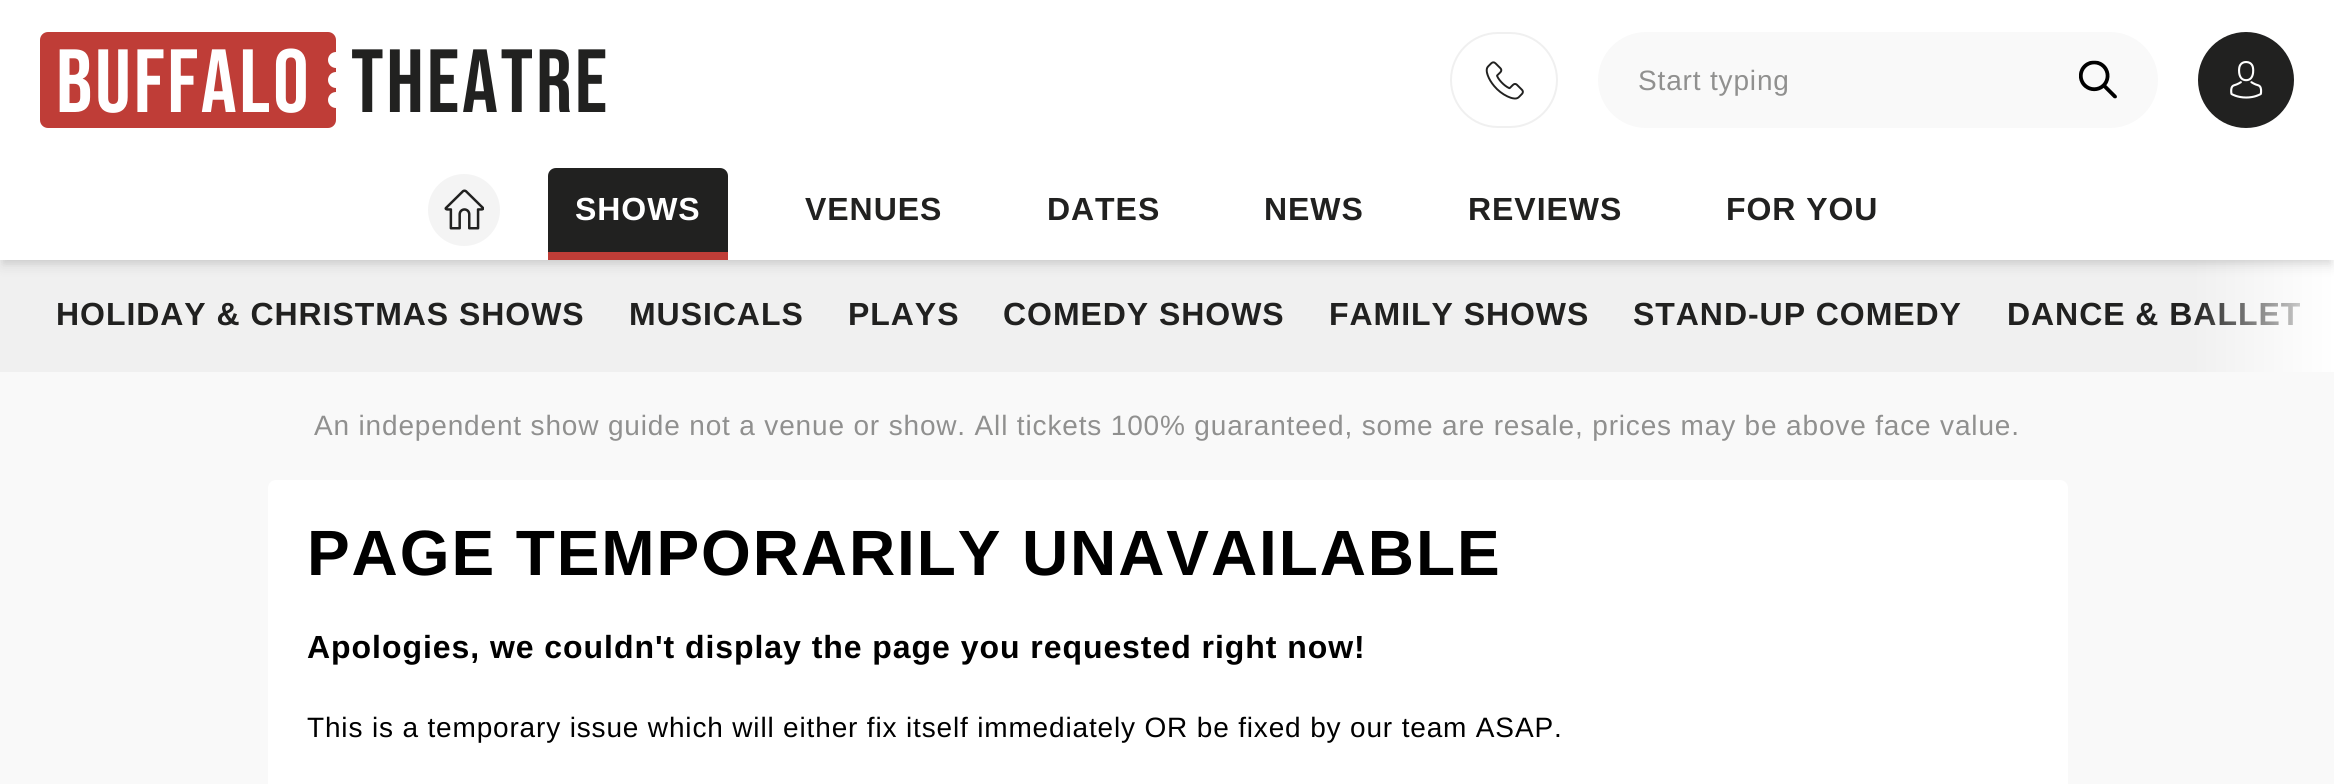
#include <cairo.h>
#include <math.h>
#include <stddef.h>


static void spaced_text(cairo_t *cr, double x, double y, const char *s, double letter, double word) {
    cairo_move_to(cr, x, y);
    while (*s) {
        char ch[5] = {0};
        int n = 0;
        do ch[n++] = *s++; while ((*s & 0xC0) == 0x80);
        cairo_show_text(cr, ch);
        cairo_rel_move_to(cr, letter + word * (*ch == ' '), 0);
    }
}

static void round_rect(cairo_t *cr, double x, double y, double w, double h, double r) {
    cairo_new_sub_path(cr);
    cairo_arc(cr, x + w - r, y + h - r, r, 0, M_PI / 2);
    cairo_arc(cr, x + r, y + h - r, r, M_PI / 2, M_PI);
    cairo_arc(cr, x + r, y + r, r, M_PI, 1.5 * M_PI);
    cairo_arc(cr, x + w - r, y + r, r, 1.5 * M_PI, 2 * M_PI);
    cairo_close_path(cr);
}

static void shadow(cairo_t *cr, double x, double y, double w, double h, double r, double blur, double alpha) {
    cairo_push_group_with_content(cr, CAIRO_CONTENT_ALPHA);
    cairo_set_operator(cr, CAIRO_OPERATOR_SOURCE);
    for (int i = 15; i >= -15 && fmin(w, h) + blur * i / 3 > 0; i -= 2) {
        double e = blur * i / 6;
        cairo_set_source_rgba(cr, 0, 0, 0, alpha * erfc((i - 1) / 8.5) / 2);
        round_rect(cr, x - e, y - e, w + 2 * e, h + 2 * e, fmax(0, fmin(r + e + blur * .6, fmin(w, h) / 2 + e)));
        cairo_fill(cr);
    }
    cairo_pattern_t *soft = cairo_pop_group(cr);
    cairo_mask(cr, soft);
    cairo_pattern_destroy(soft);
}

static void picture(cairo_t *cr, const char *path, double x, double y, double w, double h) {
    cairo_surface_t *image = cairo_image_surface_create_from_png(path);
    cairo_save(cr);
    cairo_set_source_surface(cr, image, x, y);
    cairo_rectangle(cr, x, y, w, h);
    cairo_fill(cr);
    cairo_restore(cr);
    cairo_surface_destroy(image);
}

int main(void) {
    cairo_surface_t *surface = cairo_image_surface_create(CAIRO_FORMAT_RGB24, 2334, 784);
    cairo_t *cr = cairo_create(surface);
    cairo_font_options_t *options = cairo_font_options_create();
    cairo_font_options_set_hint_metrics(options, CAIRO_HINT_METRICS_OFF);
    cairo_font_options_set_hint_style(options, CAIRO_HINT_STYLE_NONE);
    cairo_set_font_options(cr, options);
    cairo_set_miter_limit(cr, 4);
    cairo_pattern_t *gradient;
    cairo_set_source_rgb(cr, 0.973, 0.973, 0.973);
    cairo_paint(cr);
    cairo_set_source_rgb(cr, 0.941, 0.941, 0.941);
    cairo_rectangle(cr, 0, 260, 2334, 112);
    cairo_fill(cr);
    cairo_select_font_face(cr, "Liberation Sans", CAIRO_FONT_SLANT_NORMAL, CAIRO_FONT_WEIGHT_BOLD);
    cairo_set_font_size(cr, 32);
    cairo_set_source_rgb(cr, 0.129, 0.129, 0.125);
    spaced_text(cr, 2007, 325, "DANCE & BALLET", 0.95, 0);
    gradient = cairo_pattern_create_linear(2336, 316, 2192, 316);
    cairo_pattern_add_color_stop_rgba(gradient, 0, 1, 1, 1, 1);
    cairo_pattern_add_color_stop_rgba(gradient, 1, 1, 1, 1, 0);
    cairo_set_source(cr, gradient);
    cairo_pattern_destroy(gradient);
    cairo_rectangle(cr, 2195, 260, 139, 112);
    cairo_fill(cr);
    cairo_set_source_rgb(cr, 0, 0, 0);
    shadow(cr, 4, 136, 2326, 124, 0, 4, 0.1);
    shadow(cr, 2, 138, 2330, 128, 0, 6, 0.1);
    cairo_set_source_rgb(cr, 1, 1, 1);
    cairo_rectangle(cr, 0, 0, 2334, 260);
    cairo_fill(cr);
    cairo_set_source_rgb(cr, 0.749, 0.239, 0.216);
    round_rect(cr, 40, 32, 296, 96, 8);
    cairo_fill(cr);
    cairo_select_font_face(cr, "Bebas Neue", CAIRO_FONT_SLANT_NORMAL, CAIRO_FONT_WEIGHT_NORMAL);
    cairo_set_font_size(cr, 89.5);
    cairo_set_source_rgb(cr, 1, 1, 1);
    spaced_text(cr, 56, 112, "Buffalo", 2.75, 0);
    cairo_new_path(cr);
    cairo_arc(cr, 336, 60, 8, 0, 2 * M_PI);
    cairo_fill(cr);
    cairo_arc(cr, 336, 80, 8, 0, 2 * M_PI);
    cairo_fill(cr);
    cairo_arc(cr, 336, 100, 8, 0, 2 * M_PI);
    cairo_fill(cr);
    cairo_set_source_rgb(cr, 0.129, 0.129, 0.125);
    spaced_text(cr, 351, 112, "Theatre", 2.75, 0);
    round_rect(cr, 1451, 33, 106, 94, 47);
    cairo_set_source_rgb(cr, 0.941, 0.941, 0.941);
    cairo_stroke(cr);
    picture(cr, "img1.png", 1485, 61, 39, 39);
    cairo_set_source_rgb(cr, 0.973, 0.973, 0.973);
    round_rect(cr, 1598, 32, 560, 96, 48);
    cairo_fill(cr);
    cairo_select_font_face(cr, "Liberation Sans", CAIRO_FONT_SLANT_NORMAL, CAIRO_FONT_WEIGHT_NORMAL);
    cairo_set_font_size(cr, 28);
    cairo_set_source_rgb(cr, 0.565, 0.565, 0.561);
    spaced_text(cr, 1638, 90, "Start typing", 0.84, 0);
    picture(cr, "img2.png", 2079, 60, 38, 39);
    cairo_set_source_rgb(cr, 0.129, 0.129, 0.125);
    cairo_arc(cr, 2246, 80, 48, 0, 2 * M_PI);
    cairo_fill(cr);
    picture(cr, "img3.png", 2230, 61, 33, 38);
    cairo_set_source_rgb(cr, 0.957, 0.957, 0.957);
    cairo_arc(cr, 464, 210, 36, 0, 2 * M_PI);
    cairo_fill(cr);
    picture(cr, "img4.png", 444, 189, 40, 41);
    cairo_set_source_rgb(cr, 0.129, 0.129, 0.125);
    cairo_new_path(cr);
    cairo_move_to(cr, 556, 168);
    cairo_line_to(cr, 720, 168);
    cairo_curve_to(cr, 724.5, 168, 728, 171.5, 728, 176);
    cairo_line_to(cr, 728, 252);
    cairo_line_to(cr, 548, 252);
    cairo_line_to(cr, 548, 176);
    cairo_curve_to(cr, 548, 171.5, 551.5, 168, 556, 168);
    cairo_close_path(cr);
    cairo_fill(cr);
    cairo_set_source_rgb(cr, 0.749, 0.239, 0.216);
    cairo_rectangle(cr, 548, 252, 180, 8);
    cairo_fill(cr);
    cairo_select_font_face(cr, "Liberation Sans", CAIRO_FONT_SLANT_NORMAL, CAIRO_FONT_WEIGHT_BOLD);
    cairo_set_font_size(cr, 32);
    cairo_set_source_rgb(cr, 1, 1, 1);
    spaced_text(cr, 575, 220, "SHOWS", 0.95, 0);
    cairo_set_source_rgb(cr, 0.129, 0.129, 0.125);
    spaced_text(cr, 805, 220, "VENUES", 0.95, 0);
    spaced_text(cr, 1047, 220, "DATES", 0.95, 0);
    spaced_text(cr, 1264, 220, "NEWS", 0.95, 0);
    spaced_text(cr, 1468, 220, "REVIEWS", 0.95, 0);
    spaced_text(cr, 1726, 220, "FOR YOU", 0.95, 0);
    spaced_text(cr, 56, 325, "HOLIDAY & CHRISTMAS SHOWS", 0.95, 0);
    spaced_text(cr, 629, 325, "MUSICALS", 0.95, 0);
    spaced_text(cr, 848, 325, "PLAYS", 0.95, 0);
    spaced_text(cr, 1003, 325, "COMEDY SHOWS", 0.95, 0);
    spaced_text(cr, 1329, 325, "FAMILY SHOWS", 0.95, 0);
    spaced_text(cr, 1633, 325, "STAND-UP COMEDY", 0.95, 0);
    cairo_select_font_face(cr, "Liberation Sans", CAIRO_FONT_SLANT_NORMAL, CAIRO_FONT_WEIGHT_NORMAL);
    cairo_set_font_size(cr, 28);
    cairo_set_source_rgb(cr, 0.565, 0.565, 0.561);
    spaced_text(cr, 314, 435, "An independent show guide not a venue or show. All tickets 100% guaranteed, some are resale, prices may be above face value.", 0.84, 0);
    cairo_set_source_rgb(cr, 1, 1, 1);
    round_rect(cr, 268, 480, 1800, 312, 8);
    cairo_fill(cr);
    cairo_select_font_face(cr, "Liberation Sans", CAIRO_FONT_SLANT_NORMAL, CAIRO_FONT_WEIGHT_BOLD);
    cairo_set_font_size(cr, 64);
    cairo_set_source_rgb(cr, 0, 0, 0);
    spaced_text(cr, 307, 575, "PAGE TEMPORARILY UNAVAILABLE", 1.9, 0);
    cairo_set_font_size(cr, 32);
    spaced_text(cr, 307, 658, "Apologies, we couldn't display the page you requested right now!", 0.95, 0);
    cairo_select_font_face(cr, "Liberation Sans", CAIRO_FONT_SLANT_NORMAL, CAIRO_FONT_WEIGHT_NORMAL);
    cairo_set_font_size(cr, 28);
    spaced_text(cr, 307, 737, "This is a temporary issue which will either fix itself immediately OR be fixed by our team ASAP.", 0.84, 0);
    cairo_surface_write_to_png(surface, "page.png");
    cairo_font_options_destroy(options);
    cairo_destroy(cr);
    cairo_surface_destroy(surface);
    return 0;
}
